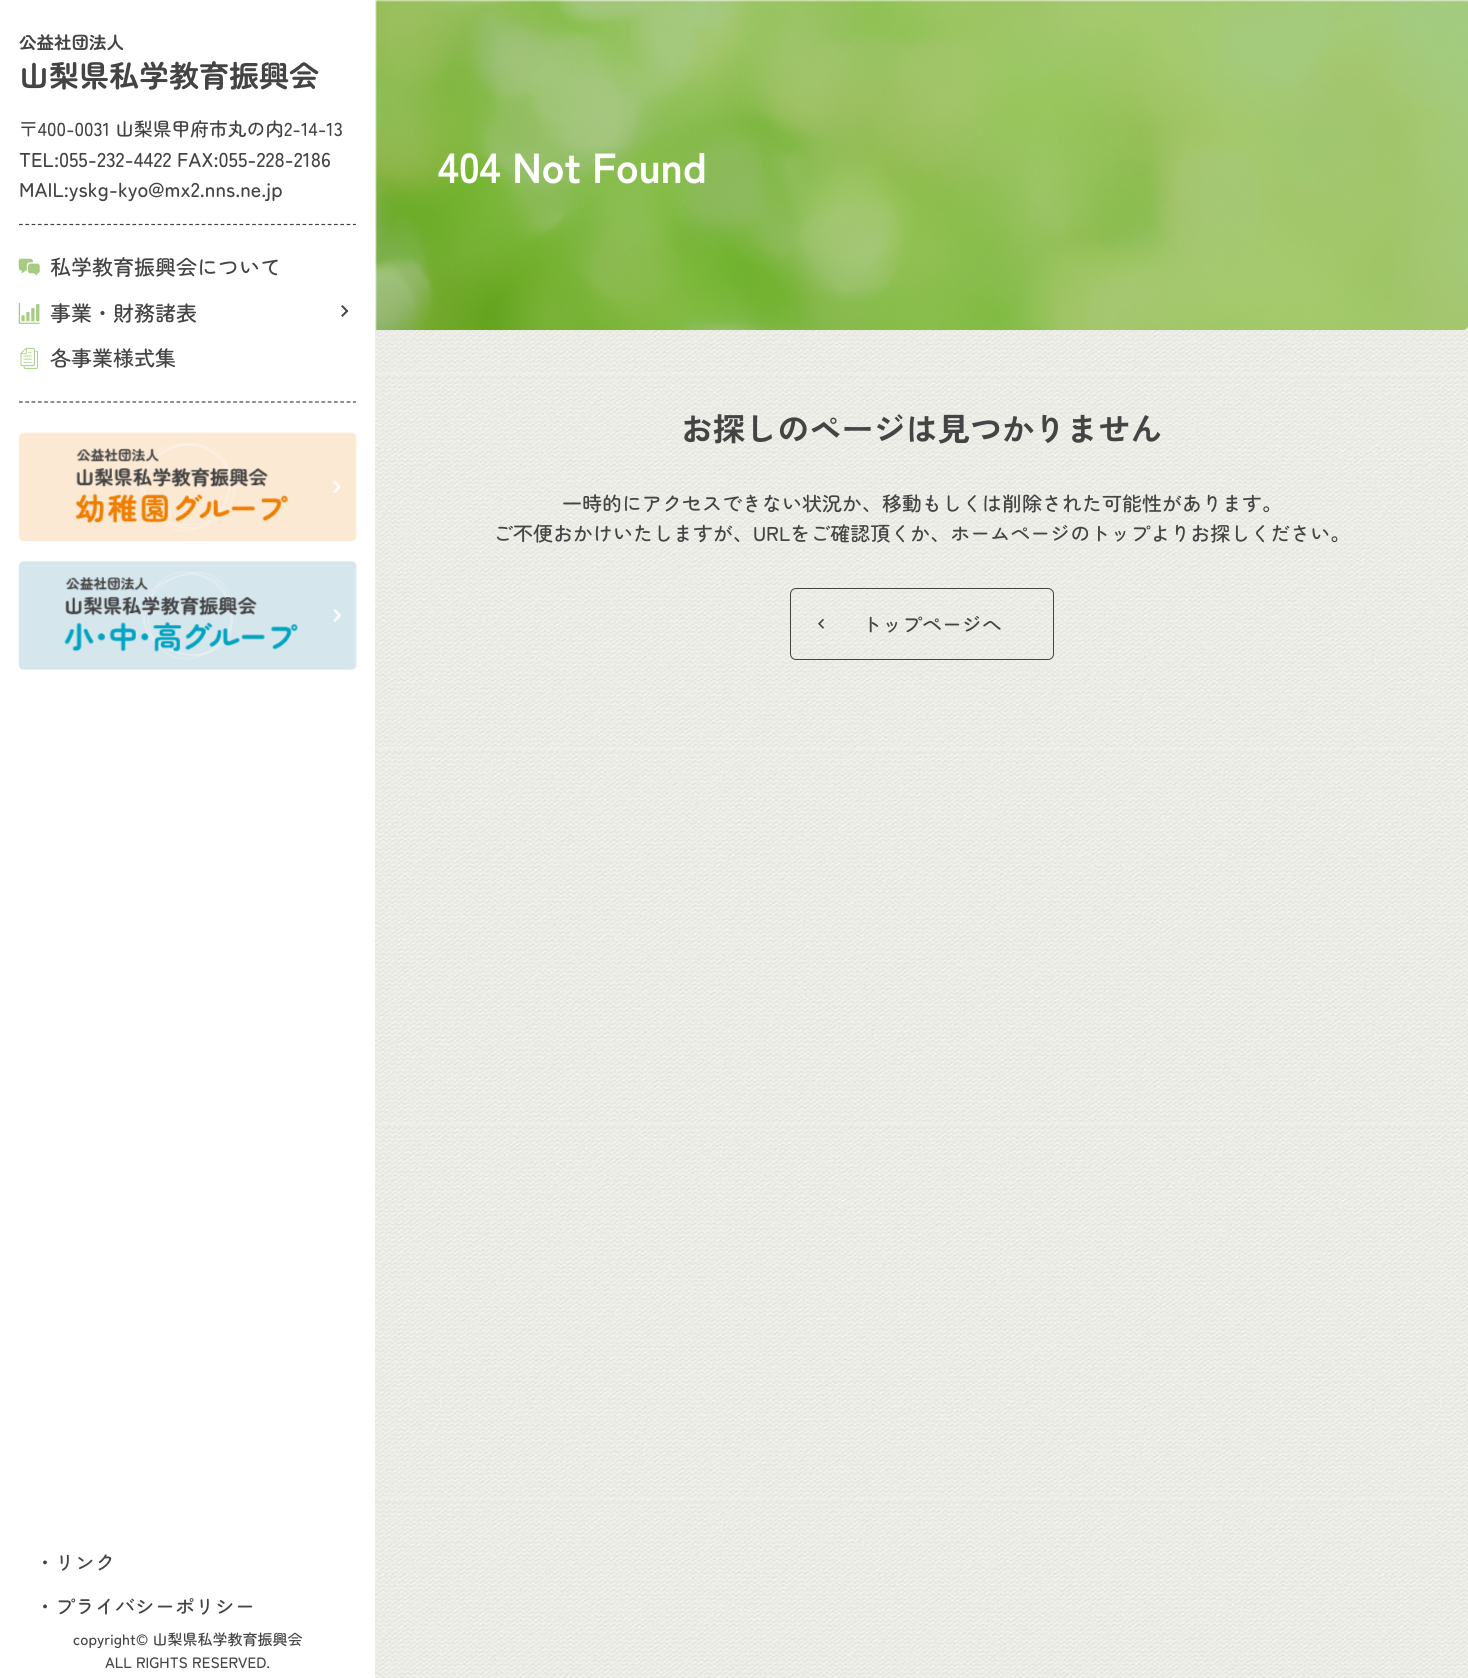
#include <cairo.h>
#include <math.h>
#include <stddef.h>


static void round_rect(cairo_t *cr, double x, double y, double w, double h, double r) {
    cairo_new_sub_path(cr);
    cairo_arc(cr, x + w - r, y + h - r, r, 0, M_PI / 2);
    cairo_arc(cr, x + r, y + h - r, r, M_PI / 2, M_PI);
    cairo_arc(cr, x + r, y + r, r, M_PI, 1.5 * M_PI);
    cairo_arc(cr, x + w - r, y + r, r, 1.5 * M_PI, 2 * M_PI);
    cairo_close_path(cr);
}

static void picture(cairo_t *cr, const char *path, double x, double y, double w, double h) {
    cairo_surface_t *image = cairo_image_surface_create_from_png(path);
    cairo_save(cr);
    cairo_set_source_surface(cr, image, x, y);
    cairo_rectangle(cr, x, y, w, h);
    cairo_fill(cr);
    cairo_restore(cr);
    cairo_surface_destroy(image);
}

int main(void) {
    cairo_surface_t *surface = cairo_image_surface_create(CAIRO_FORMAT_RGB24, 1468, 1678);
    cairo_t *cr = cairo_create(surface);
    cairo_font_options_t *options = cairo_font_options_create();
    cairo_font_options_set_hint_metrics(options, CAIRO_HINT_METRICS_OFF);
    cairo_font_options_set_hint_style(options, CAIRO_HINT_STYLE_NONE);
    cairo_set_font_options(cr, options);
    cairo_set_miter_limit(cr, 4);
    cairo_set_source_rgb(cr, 1, 1, 1);
    cairo_paint(cr);
    cairo_select_font_face(cr, "Zen Maru Gothic", CAIRO_FONT_SLANT_NORMAL, CAIRO_FONT_WEIGHT_BOLD);
    cairo_set_font_size(cr, 17.5);
    cairo_set_source_rgb(cr, 0.267, 0.267, 0.267);
    cairo_move_to(cr, 19, 49);
    cairo_show_text(cr, "公益社団法人");
    cairo_set_font_size(cr, 30);
    cairo_move_to(cr, 19, 87);
    cairo_show_text(cr, "山梨県私学教育振興会");
    cairo_select_font_face(cr, "Zen Maru Gothic Medium", CAIRO_FONT_SLANT_NORMAL, CAIRO_FONT_WEIGHT_NORMAL);
    cairo_set_font_size(cr, 18.75);
    cairo_move_to(cr, 19, 136);
    cairo_show_text(cr, "〒400-0031 山梨県甲府市丸の内2-14-13");
    cairo_set_font_size(cr, 20);
    cairo_move_to(cr, 19, 167);
    cairo_show_text(cr, "TEL:055-232-4422 FAX:055-228-2186");
    cairo_move_to(cr, 19, 197);
    cairo_show_text(cr, "MAIL:yskg-kyo@mx2.nns.ne.jp");
    cairo_new_path(cr);
    cairo_move_to(cr, 19, 224.5);
    cairo_line_to(cr, 356, 224.5);
    cairo_set_line_width(cr, 1.2);
    cairo_set_dash(cr, (double[]){3.75, 2.55}, 2, 0);
    cairo_stroke(cr);
    cairo_new_path(cr);
    cairo_move_to(cr, 19, 402);
    cairo_line_to(cr, 356, 402);
    cairo_stroke(cr);
    picture(cr, "img1.png", 18, 258, 22, 18);
    cairo_set_font_size(cr, 21);
    cairo_move_to(cr, 50, 275);
    cairo_show_text(cr, "私学教育振興会について");
    picture(cr, "img2.png", 18, 302, 22, 22);
    cairo_move_to(cr, 50, 321);
    cairo_show_text(cr, "事業・財務諸表");
    picture(cr, "img3.png", 341, 305, 8, 12);
    picture(cr, "img4.png", 20, 347, 18, 22);
    cairo_move_to(cr, 50, 366);
    cairo_show_text(cr, "各事業様式集");
    picture(cr, "img5.png", 18, 432, 339, 110);
    picture(cr, "img6.png", 18, 561, 339, 110);
    cairo_set_font_size(cr, 20);
    cairo_move_to(cr, 35, 1570);
    cairo_show_text(cr, "・リンク");
    cairo_move_to(cr, 35, 1614);
    cairo_show_text(cr, "・プライバシーポリシー");
    cairo_set_font_size(cr, 15);
    cairo_move_to(cr, 73, 1645);
    cairo_show_text(cr, "copyright© 山梨県私学教育振興会");
    cairo_move_to(cr, 105, 1668);
    cairo_show_text(cr, "ALL RIGHTS RESERVED.");
    picture(cr, "img7.png", 375, 326, 1093, 1352);
    picture(cr, "img8.png", 375, 0, 1093, 330);
    cairo_select_font_face(cr, "Zen Kaku Gothic New", CAIRO_FONT_SLANT_NORMAL, CAIRO_FONT_WEIGHT_BOLD);
    cairo_set_font_size(cr, 42);
    cairo_set_source_rgb(cr, 1, 1, 1);
    cairo_move_to(cr, 438, 183);
    cairo_show_text(cr, "404 Not Found");
    cairo_set_font_size(cr, 32.1);
    cairo_set_source_rgb(cr, 0.267, 0.267, 0.267);
    cairo_move_to(cr, 681, 441);
    cairo_show_text(cr, "お探しのページは見つかりません");
    cairo_select_font_face(cr, "Zen Maru Gothic Medium", CAIRO_FONT_SLANT_NORMAL, CAIRO_FONT_WEIGHT_NORMAL);
    cairo_set_font_size(cr, 20);
    cairo_move_to(cr, 562, 511);
    cairo_show_text(cr, "一時的にアクセスできない状況か、移動もしくは削除された可能性があります。");
    cairo_move_to(cr, 493, 541);
    cairo_show_text(cr, "ご不便おかけいたしますが、URLをご確認頂くか、ホームページのトップよりお探しください。");
    round_rect(cr, 790.5, 588.5, 263, 71, 5.5);
    cairo_set_line_width(cr, 1);
    cairo_set_dash(cr, NULL, 0, 0);
    cairo_stroke(cr);
    picture(cr, "img9.png", 818, 618, 6, 11);
    cairo_move_to(cr, 862, 632);
    cairo_show_text(cr, "トップページへ");
    cairo_surface_write_to_png(surface, "page.png");
    cairo_font_options_destroy(options);
    cairo_destroy(cr);
    cairo_surface_destroy(surface);
    return 0;
}
